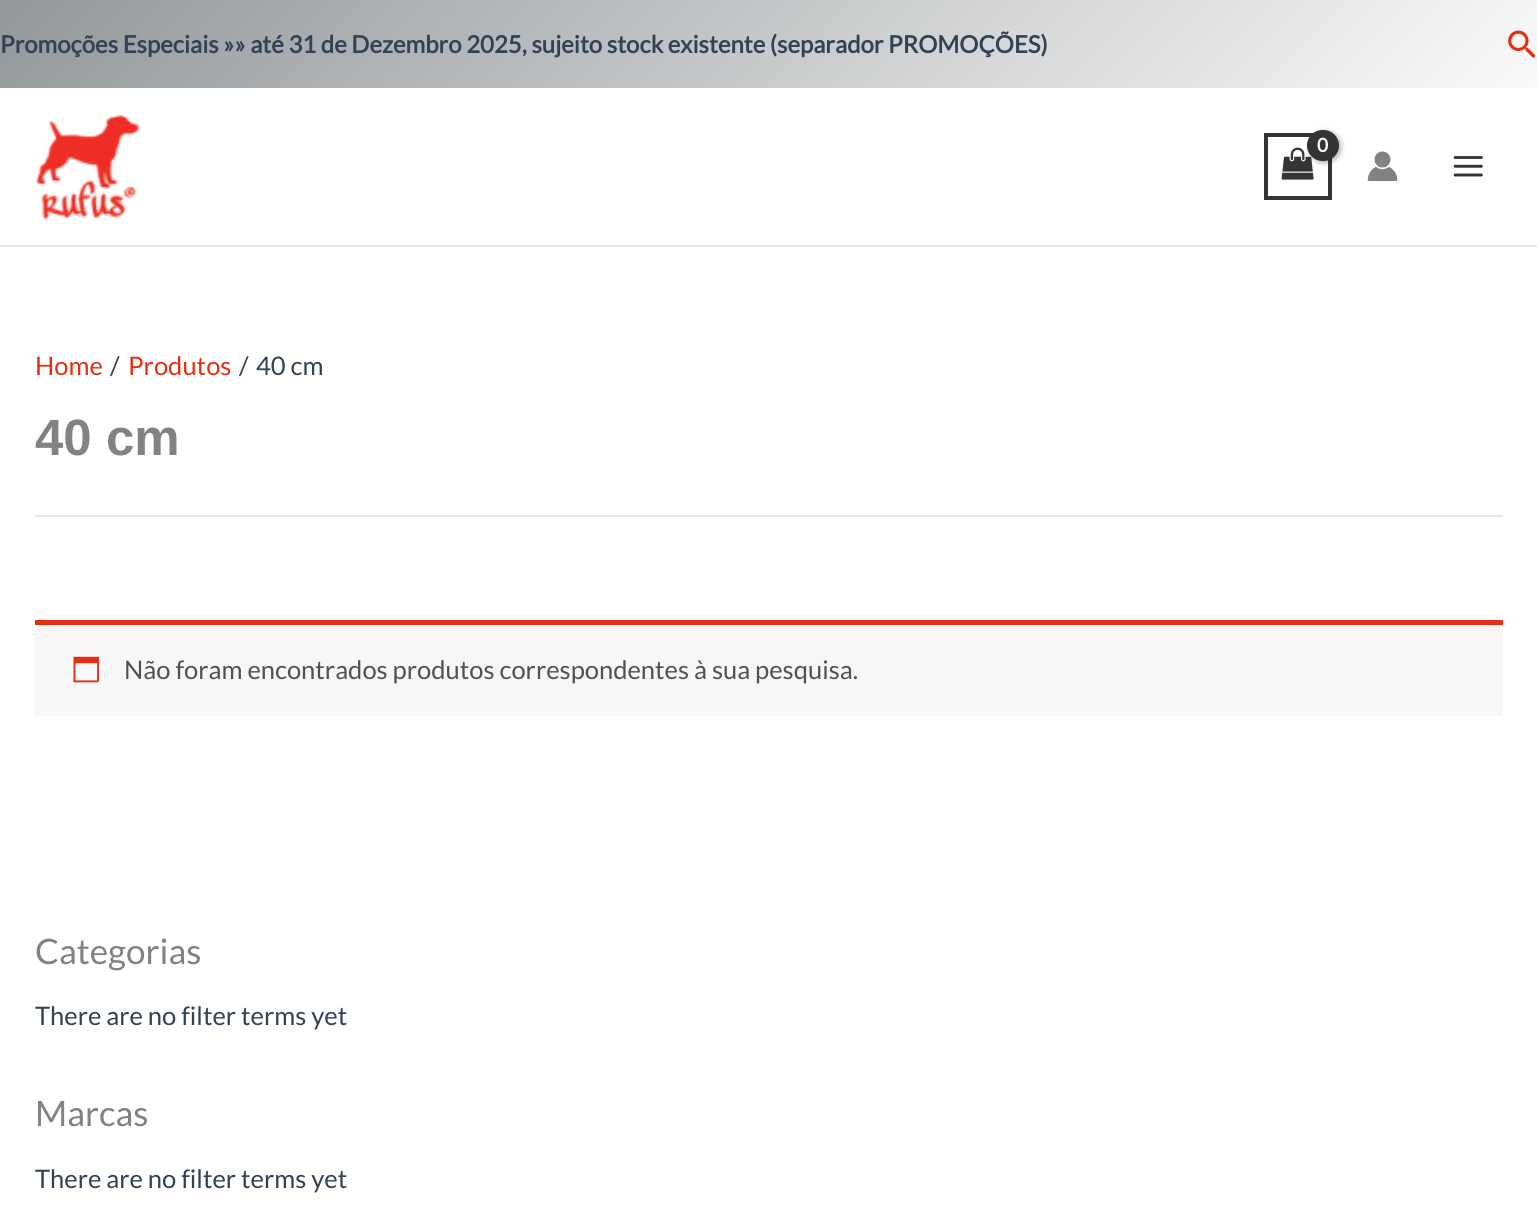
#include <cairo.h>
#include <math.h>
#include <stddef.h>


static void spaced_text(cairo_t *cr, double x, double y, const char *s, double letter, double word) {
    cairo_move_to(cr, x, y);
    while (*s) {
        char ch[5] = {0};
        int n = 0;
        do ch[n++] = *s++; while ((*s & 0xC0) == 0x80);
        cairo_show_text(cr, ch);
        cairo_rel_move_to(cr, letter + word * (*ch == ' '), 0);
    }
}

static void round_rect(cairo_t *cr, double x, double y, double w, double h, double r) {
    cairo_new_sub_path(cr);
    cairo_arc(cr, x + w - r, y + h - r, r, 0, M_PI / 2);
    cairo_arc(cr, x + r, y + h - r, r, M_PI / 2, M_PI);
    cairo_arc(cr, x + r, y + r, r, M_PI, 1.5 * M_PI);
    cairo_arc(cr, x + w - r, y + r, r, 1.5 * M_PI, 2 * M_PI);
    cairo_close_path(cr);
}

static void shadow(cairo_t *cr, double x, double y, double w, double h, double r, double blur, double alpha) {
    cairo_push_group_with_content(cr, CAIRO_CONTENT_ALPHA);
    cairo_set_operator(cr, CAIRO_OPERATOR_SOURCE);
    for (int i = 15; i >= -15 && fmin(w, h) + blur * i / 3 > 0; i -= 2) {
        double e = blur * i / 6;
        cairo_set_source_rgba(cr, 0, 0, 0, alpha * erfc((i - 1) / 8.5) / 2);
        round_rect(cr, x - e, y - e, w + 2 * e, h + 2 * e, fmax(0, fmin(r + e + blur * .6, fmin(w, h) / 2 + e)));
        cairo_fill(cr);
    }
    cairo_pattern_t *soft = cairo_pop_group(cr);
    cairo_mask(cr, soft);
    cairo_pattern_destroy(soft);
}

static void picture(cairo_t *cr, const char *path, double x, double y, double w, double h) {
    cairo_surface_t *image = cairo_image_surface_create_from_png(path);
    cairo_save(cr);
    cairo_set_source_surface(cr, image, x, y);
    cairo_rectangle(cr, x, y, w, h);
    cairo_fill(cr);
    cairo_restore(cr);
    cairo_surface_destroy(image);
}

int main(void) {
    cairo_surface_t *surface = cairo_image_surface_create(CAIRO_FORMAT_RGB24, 1537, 1223);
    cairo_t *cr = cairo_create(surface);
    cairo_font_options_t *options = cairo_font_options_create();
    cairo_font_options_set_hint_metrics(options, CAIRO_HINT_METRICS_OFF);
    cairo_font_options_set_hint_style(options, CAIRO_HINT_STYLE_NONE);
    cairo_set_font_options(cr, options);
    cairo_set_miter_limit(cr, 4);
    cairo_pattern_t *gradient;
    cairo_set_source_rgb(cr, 1, 1, 1);
    cairo_paint(cr);
    gradient = cairo_pattern_create_linear(363, -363, 1176, 450);
    cairo_pattern_add_color_stop_rgba(gradient, 0, 0.576, 0.596, 0.608, 1);
    cairo_pattern_add_color_stop_rgba(gradient, 1, 0.98, 0.98, 0.98, 1);
    cairo_set_source(cr, gradient);
    cairo_pattern_destroy(gradient);
    cairo_rectangle(cr, 0, 0, 1537, 88);
    cairo_fill(cr);
    cairo_select_font_face(cr, "Lato", CAIRO_FONT_SLANT_NORMAL, CAIRO_FONT_WEIGHT_BOLD);
    cairo_set_font_size(cr, 23.95);
    cairo_set_source_rgb(cr, 0.2, 0.255, 0.333);
    cairo_move_to(cr, 0, 53);
    cairo_show_text(cr, "Promoções Especiais »» até 31 de Dezembro 2025, sujeito stock existente (separador PROMOÇÕES)");
    picture(cr, "img1.png", 1508, 30, 27, 28);
    cairo_set_source_rgb(cr, 0.886, 0.91, 0.941);
    cairo_rectangle(cr, 0, 245, 1537, 2);
    cairo_fill(cr);
    picture(cr, "img2.png", 35, 115, 105, 105);
    cairo_rectangle(cr, 1266, 135, 64, 63);
    cairo_set_source_rgb(cr, 0.204, 0.204, 0.204);
    cairo_set_line_width(cr, 4);
    cairo_stroke(cr);
    picture(cr, "img3.png", 1281, 147, 33, 33);
    cairo_set_source_rgb(cr, 0, 0, 0);
    shadow(cr, 1309, 131, 32, 32, 16, 2.5, 0.3);
    cairo_set_source_rgb(cr, 0.204, 0.204, 0.204);
    round_rect(cr, 1307, 130, 32, 31, 15.5);
    cairo_fill(cr);
    cairo_set_font_size(cr, 19);
    cairo_set_source_rgb(cr, 1, 1, 1);
    spaced_text(cr, 1317, 152, "0", -1, 0);
    picture(cr, "img4.png", 1367, 151, 31, 30);
    picture(cr, "img5.png", 1453, 156, 30, 21);
    cairo_set_source_rgb(cr, 0.886, 0.91, 0.941);
    cairo_rectangle(cr, 35, 515, 1468, 2);
    cairo_fill(cr);
    cairo_select_font_face(cr, "Lato", CAIRO_FONT_SLANT_NORMAL, CAIRO_FONT_WEIGHT_NORMAL);
    cairo_set_font_size(cr, 25.55);
    cairo_set_source_rgb(cr, 0.898, 0.18, 0.071);
    cairo_move_to(cr, 35, 375);
    cairo_show_text(cr, "Home");
    cairo_set_source_rgb(cr, 0.2, 0.255, 0.333);
    cairo_move_to(cr, 110, 375);
    cairo_show_text(cr, "/");
    cairo_set_source_rgb(cr, 0.898, 0.18, 0.071);
    cairo_move_to(cr, 128, 375);
    cairo_show_text(cr, "Produtos");
    cairo_set_source_rgb(cr, 0.2, 0.255, 0.333);
    cairo_move_to(cr, 239, 375);
    cairo_show_text(cr, "/");
    cairo_move_to(cr, 256, 375);
    cairo_show_text(cr, "40 cm");
    cairo_select_font_face(cr, "Liberation Sans", CAIRO_FONT_SLANT_NORMAL, CAIRO_FONT_WEIGHT_BOLD);
    cairo_set_font_size(cr, 51);
    cairo_set_source_rgb(cr, 0.506, 0.51, 0.51);
    cairo_move_to(cr, 35, 455);
    cairo_show_text(cr, "40 cm");
    cairo_set_source_rgb(cr, 0.969, 0.965, 0.969);
    cairo_rectangle(cr, 35, 625, 1468, 91);
    cairo_fill(cr);
    cairo_set_source_rgb(cr, 0.898, 0.18, 0.071);
    cairo_rectangle(cr, 35, 620, 1468, 5);
    cairo_fill(cr);
    picture(cr, "img6.png", 73, 656, 27, 27);
    cairo_select_font_face(cr, "Lato", CAIRO_FONT_SLANT_NORMAL, CAIRO_FONT_WEIGHT_NORMAL);
    cairo_set_font_size(cr, 25.55);
    cairo_set_source_rgb(cr, 0.318, 0.318, 0.318);
    cairo_move_to(cr, 124, 679);
    cairo_show_text(cr, "Não foram encontrados produtos correspondentes à sua pesquisa.");
    cairo_set_font_size(cr, 35);
    cairo_set_source_rgb(cr, 0.506, 0.51, 0.51);
    cairo_move_to(cr, 35, 964);
    cairo_show_text(cr, "Categorias");
    cairo_set_font_size(cr, 25.55);
    cairo_set_source_rgb(cr, 0.2, 0.255, 0.333);
    cairo_move_to(cr, 35, 1025);
    cairo_show_text(cr, "There are no filter terms yet");
    cairo_set_font_size(cr, 35);
    cairo_set_source_rgb(cr, 0.506, 0.51, 0.51);
    cairo_move_to(cr, 35, 1126);
    cairo_show_text(cr, "Marcas");
    cairo_set_font_size(cr, 25.55);
    cairo_set_source_rgb(cr, 0.2, 0.255, 0.333);
    cairo_move_to(cr, 35, 1188);
    cairo_show_text(cr, "There are no filter terms yet");
    cairo_surface_write_to_png(surface, "page.png");
    cairo_font_options_destroy(options);
    cairo_destroy(cr);
    cairo_surface_destroy(surface);
    return 0;
}
